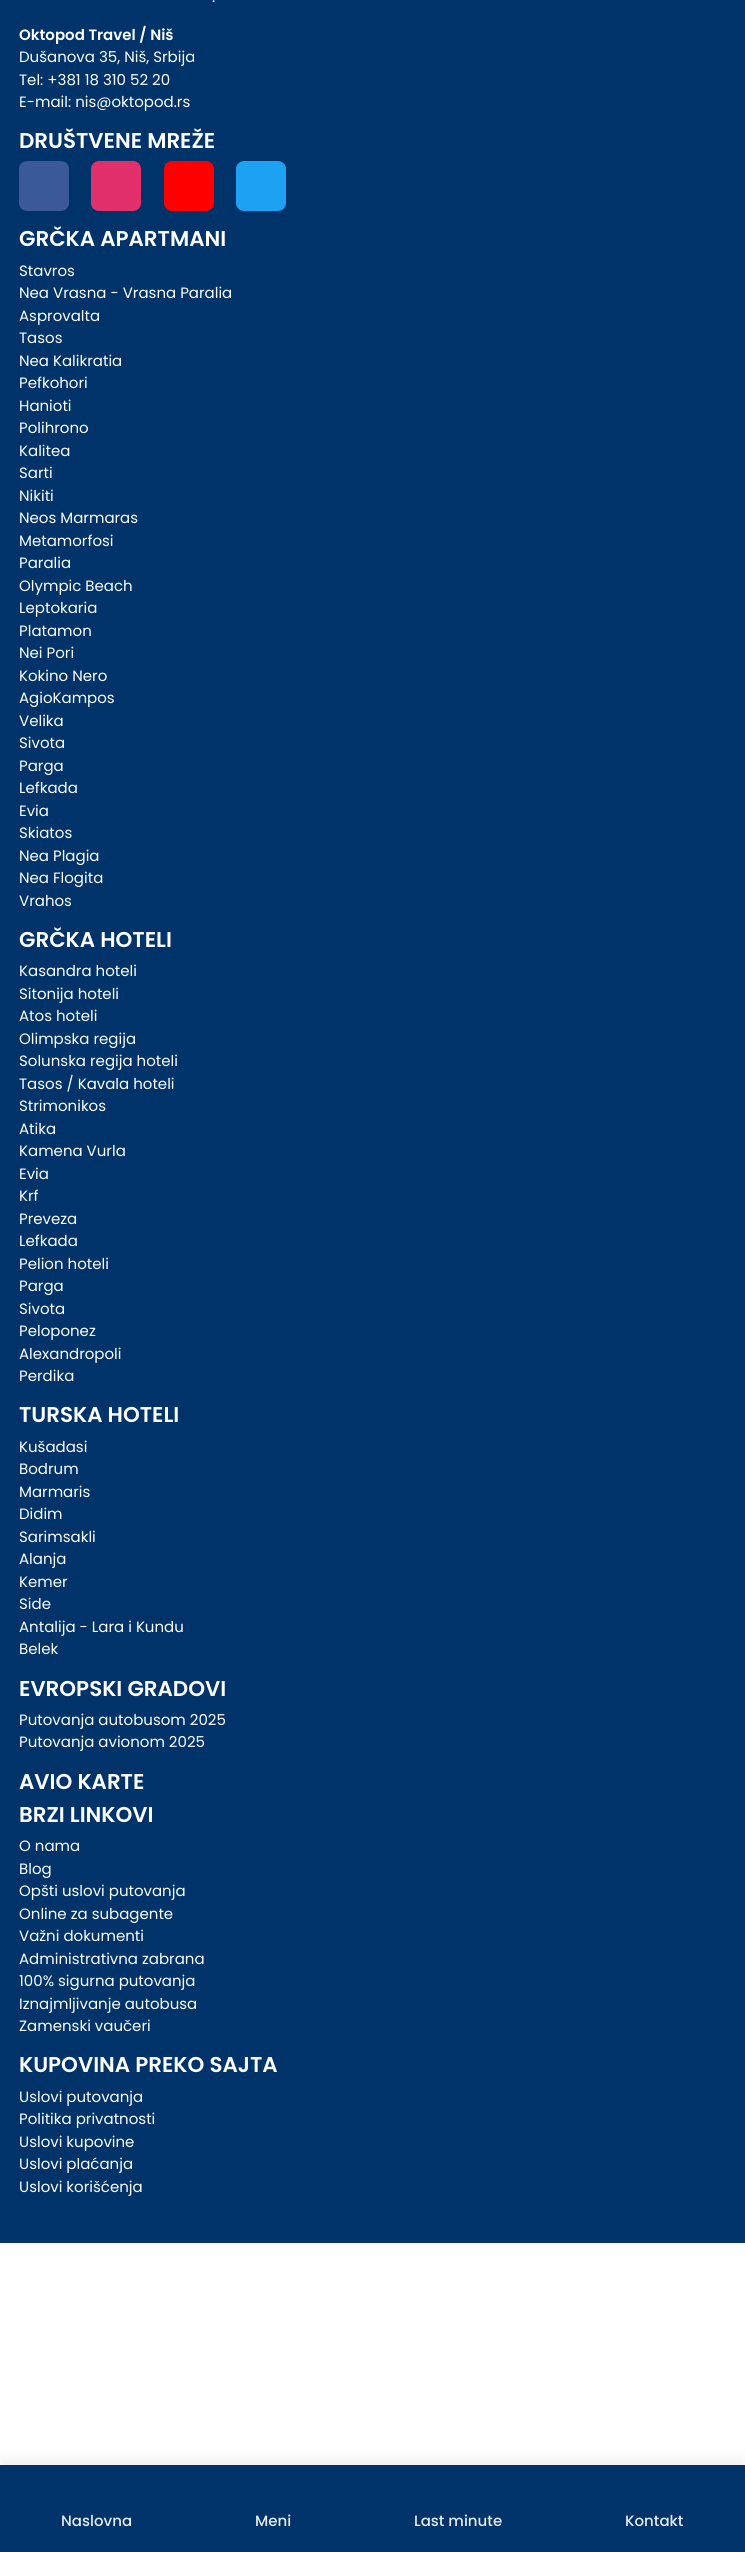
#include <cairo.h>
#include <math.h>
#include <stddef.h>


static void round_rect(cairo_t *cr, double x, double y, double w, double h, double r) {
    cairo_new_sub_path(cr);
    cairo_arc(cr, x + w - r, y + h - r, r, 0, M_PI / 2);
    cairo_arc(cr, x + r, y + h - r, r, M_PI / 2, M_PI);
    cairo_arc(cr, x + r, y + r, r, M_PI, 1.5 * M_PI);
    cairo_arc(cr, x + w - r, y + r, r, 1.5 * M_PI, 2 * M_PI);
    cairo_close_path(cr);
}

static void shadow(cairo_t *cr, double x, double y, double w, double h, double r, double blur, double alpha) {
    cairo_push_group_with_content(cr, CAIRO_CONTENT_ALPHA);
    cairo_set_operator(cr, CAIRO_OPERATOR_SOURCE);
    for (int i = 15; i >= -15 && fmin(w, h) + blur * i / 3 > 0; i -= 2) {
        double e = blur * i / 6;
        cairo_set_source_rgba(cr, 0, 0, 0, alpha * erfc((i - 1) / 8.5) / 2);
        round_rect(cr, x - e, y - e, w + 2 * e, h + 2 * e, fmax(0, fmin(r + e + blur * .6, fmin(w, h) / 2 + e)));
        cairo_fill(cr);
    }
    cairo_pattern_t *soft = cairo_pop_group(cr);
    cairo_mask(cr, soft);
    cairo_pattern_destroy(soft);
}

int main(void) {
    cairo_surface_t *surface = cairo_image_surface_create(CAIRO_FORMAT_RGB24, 745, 2552);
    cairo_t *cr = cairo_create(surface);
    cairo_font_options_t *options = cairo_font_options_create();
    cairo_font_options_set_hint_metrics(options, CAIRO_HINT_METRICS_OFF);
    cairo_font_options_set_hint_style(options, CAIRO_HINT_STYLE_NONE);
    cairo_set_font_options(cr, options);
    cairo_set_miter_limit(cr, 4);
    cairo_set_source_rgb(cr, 1, 1, 1);
    cairo_paint(cr);
    cairo_set_source_rgb(cr, 0, 0.2, 0.412);
    cairo_rectangle(cr, 0, 0, 745, 2243);
    cairo_fill(cr);
    cairo_select_font_face(cr, "Poppins", CAIRO_FONT_SLANT_NORMAL, CAIRO_FONT_WEIGHT_NORMAL);
    cairo_set_font_size(cr, 15);
    cairo_set_source_rgb(cr, 1, 1, 1);
    cairo_move_to(cr, 212, 2);
    cairo_show_text(cr, ".");
    cairo_select_font_face(cr, "Poppins SemiBold", CAIRO_FONT_SLANT_NORMAL, CAIRO_FONT_WEIGHT_NORMAL);
    cairo_move_to(cr, 19, 40);
    cairo_show_text(cr, "Oktopod Travel / Niš");
    cairo_select_font_face(cr, "Poppins", CAIRO_FONT_SLANT_NORMAL, CAIRO_FONT_WEIGHT_NORMAL);
    cairo_move_to(cr, 19, 62);
    cairo_show_text(cr, "Dušanova 35, Niš, Srbija");
    cairo_move_to(cr, 19, 85);
    cairo_show_text(cr, "Tel: +381 18 310 52 20");
    cairo_move_to(cr, 19, 107);
    cairo_show_text(cr, "E-mail: nis@oktopod.rs");
    cairo_select_font_face(cr, "Poppins SemiBold", CAIRO_FONT_SLANT_NORMAL, CAIRO_FONT_WEIGHT_NORMAL);
    cairo_set_font_size(cr, 21.4);
    cairo_move_to(cr, 19, 148);
    cairo_show_text(cr, "DRUŠTVENE MREŽE");
    cairo_set_source_rgb(cr, 0.231, 0.349, 0.596);
    round_rect(cr, 19, 161, 50, 50, 8);
    cairo_fill(cr);
    cairo_set_source_rgb(cr, 0.882, 0.188, 0.424);
    round_rect(cr, 91, 161, 50, 50, 8);
    cairo_fill(cr);
    cairo_set_source_rgb(cr, 1, 0, 0);
    round_rect(cr, 164, 161, 50, 50, 8);
    cairo_fill(cr);
    cairo_set_source_rgb(cr, 0.114, 0.631, 0.949);
    round_rect(cr, 236, 161, 50, 50, 8);
    cairo_fill(cr);
    cairo_set_source_rgb(cr, 1, 1, 1);
    cairo_move_to(cr, 19, 246);
    cairo_show_text(cr, "GRČKA APARTMANI");
    cairo_select_font_face(cr, "Poppins", CAIRO_FONT_SLANT_NORMAL, CAIRO_FONT_WEIGHT_NORMAL);
    cairo_set_font_size(cr, 15);
    cairo_move_to(cr, 19, 276);
    cairo_show_text(cr, "Stavros");
    cairo_move_to(cr, 19, 298);
    cairo_show_text(cr, "Nea Vrasna - Vrasna Paralia");
    cairo_move_to(cr, 19, 321);
    cairo_show_text(cr, "Asprovalta");
    cairo_move_to(cr, 19, 343);
    cairo_show_text(cr, "Tasos");
    cairo_move_to(cr, 19, 366);
    cairo_show_text(cr, "Nea Kalikratia");
    cairo_move_to(cr, 19, 388);
    cairo_show_text(cr, "Pefkohori");
    cairo_move_to(cr, 19, 411);
    cairo_show_text(cr, "Hanioti");
    cairo_move_to(cr, 19, 433);
    cairo_show_text(cr, "Polihrono");
    cairo_move_to(cr, 19, 456);
    cairo_show_text(cr, "Kalitea");
    cairo_move_to(cr, 19, 478);
    cairo_show_text(cr, "Sarti");
    cairo_move_to(cr, 19, 501);
    cairo_show_text(cr, "Nikiti");
    cairo_move_to(cr, 19, 523);
    cairo_show_text(cr, "Neos Marmaras");
    cairo_move_to(cr, 19, 546);
    cairo_show_text(cr, "Metamorfosi");
    cairo_move_to(cr, 19, 568);
    cairo_show_text(cr, "Paralia");
    cairo_move_to(cr, 19, 591);
    cairo_show_text(cr, "Olympic Beach");
    cairo_move_to(cr, 19, 613);
    cairo_show_text(cr, "Leptokaria");
    cairo_move_to(cr, 19, 636);
    cairo_show_text(cr, "Platamon");
    cairo_move_to(cr, 19, 658);
    cairo_show_text(cr, "Nei Pori");
    cairo_move_to(cr, 19, 681);
    cairo_show_text(cr, "Kokino Nero");
    cairo_move_to(cr, 19, 703);
    cairo_show_text(cr, "AgioKampos");
    cairo_move_to(cr, 19, 726);
    cairo_show_text(cr, "Velika");
    cairo_move_to(cr, 19, 748);
    cairo_show_text(cr, "Sivota");
    cairo_move_to(cr, 19, 771);
    cairo_show_text(cr, "Parga");
    cairo_move_to(cr, 19, 793);
    cairo_show_text(cr, "Lefkada");
    cairo_move_to(cr, 19, 816);
    cairo_show_text(cr, "Evia");
    cairo_move_to(cr, 19, 838);
    cairo_show_text(cr, "Skiatos");
    cairo_move_to(cr, 19, 861);
    cairo_show_text(cr, "Nea Plagia");
    cairo_move_to(cr, 19, 883);
    cairo_show_text(cr, "Nea Flogita");
    cairo_move_to(cr, 19, 906);
    cairo_show_text(cr, "Vrahos");
    cairo_select_font_face(cr, "Poppins SemiBold", CAIRO_FONT_SLANT_NORMAL, CAIRO_FONT_WEIGHT_NORMAL);
    cairo_set_font_size(cr, 21.4);
    cairo_move_to(cr, 19, 947);
    cairo_show_text(cr, "GRČKA HOTELI");
    cairo_select_font_face(cr, "Poppins", CAIRO_FONT_SLANT_NORMAL, CAIRO_FONT_WEIGHT_NORMAL);
    cairo_set_font_size(cr, 15);
    cairo_move_to(cr, 19, 976);
    cairo_show_text(cr, "Kasandra hoteli");
    cairo_move_to(cr, 19, 999);
    cairo_show_text(cr, "Sitonija hoteli");
    cairo_move_to(cr, 19, 1021);
    cairo_show_text(cr, "Atos hoteli");
    cairo_move_to(cr, 19, 1044);
    cairo_show_text(cr, "Olimpska regija");
    cairo_move_to(cr, 19, 1066);
    cairo_show_text(cr, "Solunska regija hoteli");
    cairo_move_to(cr, 19, 1089);
    cairo_show_text(cr, "Tasos / Kavala hoteli");
    cairo_move_to(cr, 19, 1111);
    cairo_show_text(cr, "Strimonikos");
    cairo_move_to(cr, 19, 1134);
    cairo_show_text(cr, "Atika");
    cairo_move_to(cr, 19, 1156);
    cairo_show_text(cr, "Kamena Vurla");
    cairo_move_to(cr, 19, 1179);
    cairo_show_text(cr, "Evia");
    cairo_move_to(cr, 19, 1201);
    cairo_show_text(cr, "Krf");
    cairo_move_to(cr, 19, 1224);
    cairo_show_text(cr, "Preveza");
    cairo_move_to(cr, 19, 1246);
    cairo_show_text(cr, "Lefkada");
    cairo_move_to(cr, 19, 1269);
    cairo_show_text(cr, "Pelion hoteli");
    cairo_move_to(cr, 19, 1291);
    cairo_show_text(cr, "Parga");
    cairo_move_to(cr, 19, 1314);
    cairo_show_text(cr, "Sivota");
    cairo_move_to(cr, 19, 1336);
    cairo_show_text(cr, "Peloponez");
    cairo_move_to(cr, 19, 1359);
    cairo_show_text(cr, "Alexandropoli");
    cairo_move_to(cr, 19, 1381);
    cairo_show_text(cr, "Perdika");
    cairo_select_font_face(cr, "Poppins SemiBold", CAIRO_FONT_SLANT_NORMAL, CAIRO_FONT_WEIGHT_NORMAL);
    cairo_set_font_size(cr, 21.4);
    cairo_move_to(cr, 19, 1422);
    cairo_show_text(cr, "TURSKA HOTELI");
    cairo_select_font_face(cr, "Poppins", CAIRO_FONT_SLANT_NORMAL, CAIRO_FONT_WEIGHT_NORMAL);
    cairo_set_font_size(cr, 15);
    cairo_move_to(cr, 19, 1452);
    cairo_show_text(cr, "Kušadasi");
    cairo_move_to(cr, 19, 1474);
    cairo_show_text(cr, "Bodrum");
    cairo_move_to(cr, 19, 1497);
    cairo_show_text(cr, "Marmaris");
    cairo_move_to(cr, 19, 1519);
    cairo_show_text(cr, "Didim");
    cairo_move_to(cr, 19, 1542);
    cairo_show_text(cr, "Sarimsakli");
    cairo_move_to(cr, 19, 1564);
    cairo_show_text(cr, "Alanja");
    cairo_move_to(cr, 19, 1587);
    cairo_show_text(cr, "Kemer");
    cairo_move_to(cr, 19, 1609);
    cairo_show_text(cr, "Side");
    cairo_move_to(cr, 19, 1632);
    cairo_show_text(cr, "Antalija - Lara i Kundu");
    cairo_move_to(cr, 19, 1654);
    cairo_show_text(cr, "Belek");
    cairo_select_font_face(cr, "Poppins SemiBold", CAIRO_FONT_SLANT_NORMAL, CAIRO_FONT_WEIGHT_NORMAL);
    cairo_set_font_size(cr, 21.4);
    cairo_move_to(cr, 19, 1696);
    cairo_show_text(cr, "EVROPSKI GRADOVI");
    cairo_select_font_face(cr, "Poppins", CAIRO_FONT_SLANT_NORMAL, CAIRO_FONT_WEIGHT_NORMAL);
    cairo_set_font_size(cr, 15);
    cairo_move_to(cr, 19, 1725);
    cairo_show_text(cr, "Putovanja autobusom 2025");
    cairo_move_to(cr, 19, 1747);
    cairo_show_text(cr, "Putovanja avionom 2025");
    cairo_select_font_face(cr, "Poppins SemiBold", CAIRO_FONT_SLANT_NORMAL, CAIRO_FONT_WEIGHT_NORMAL);
    cairo_set_font_size(cr, 21.4);
    cairo_move_to(cr, 19, 1789);
    cairo_show_text(cr, "AVIO KARTE");
    cairo_move_to(cr, 19, 1822);
    cairo_show_text(cr, "BRZI LINKOVI");
    cairo_select_font_face(cr, "Poppins", CAIRO_FONT_SLANT_NORMAL, CAIRO_FONT_WEIGHT_NORMAL);
    cairo_set_font_size(cr, 15);
    cairo_move_to(cr, 19, 1851);
    cairo_show_text(cr, "O nama");
    cairo_move_to(cr, 19, 1874);
    cairo_show_text(cr, "Blog");
    cairo_move_to(cr, 19, 1896);
    cairo_show_text(cr, "Opšti uslovi putovanja");
    cairo_move_to(cr, 19, 1919);
    cairo_show_text(cr, "Online za subagente");
    cairo_move_to(cr, 19, 1941);
    cairo_show_text(cr, "Važni dokumenti");
    cairo_move_to(cr, 19, 1964);
    cairo_show_text(cr, "Administrativna zabrana");
    cairo_move_to(cr, 19, 1986);
    cairo_show_text(cr, "100% sigurna putovanja");
    cairo_move_to(cr, 19, 2009);
    cairo_show_text(cr, "Iznajmljivanje autobusa");
    cairo_move_to(cr, 19, 2031);
    cairo_show_text(cr, "Zamenski vaučeri");
    cairo_select_font_face(cr, "Poppins SemiBold", CAIRO_FONT_SLANT_NORMAL, CAIRO_FONT_WEIGHT_NORMAL);
    cairo_set_font_size(cr, 21.4);
    cairo_move_to(cr, 19, 2072);
    cairo_show_text(cr, "KUPOVINA PREKO SAJTA");
    cairo_select_font_face(cr, "Poppins", CAIRO_FONT_SLANT_NORMAL, CAIRO_FONT_WEIGHT_NORMAL);
    cairo_set_font_size(cr, 15);
    cairo_move_to(cr, 19, 2102);
    cairo_show_text(cr, "Uslovi putovanja");
    cairo_move_to(cr, 19, 2124);
    cairo_show_text(cr, "Politika privatnosti");
    cairo_move_to(cr, 19, 2147);
    cairo_show_text(cr, "Uslovi kupovine");
    cairo_move_to(cr, 19, 2169);
    cairo_show_text(cr, "Uslovi plaćanja");
    cairo_move_to(cr, 19, 2192);
    cairo_show_text(cr, "Uslovi korišćenja");
    cairo_set_source_rgb(cr, 0, 0, 0);
    shadow(cr, 0, 2459, 745, 87, 0, 6, 0.06);
    cairo_set_source_rgb(cr, 0, 0.2, 0.412);
    cairo_rectangle(cr, 0, 2465, 745, 87);
    cairo_fill(cr);
    cairo_select_font_face(cr, "Poppins Medium", CAIRO_FONT_SLANT_NORMAL, CAIRO_FONT_WEIGHT_NORMAL);
    cairo_set_source_rgb(cr, 0.902, 0.922, 0.941);
    cairo_move_to(cr, 61, 2526);
    cairo_show_text(cr, "Naslovna");
    cairo_move_to(cr, 255, 2526);
    cairo_show_text(cr, "Meni");
    cairo_move_to(cr, 414, 2526);
    cairo_show_text(cr, "Last minute");
    cairo_move_to(cr, 625, 2526);
    cairo_show_text(cr, "Kontakt");
    cairo_surface_write_to_png(surface, "page.png");
    cairo_font_options_destroy(options);
    cairo_destroy(cr);
    cairo_surface_destroy(surface);
    return 0;
}
